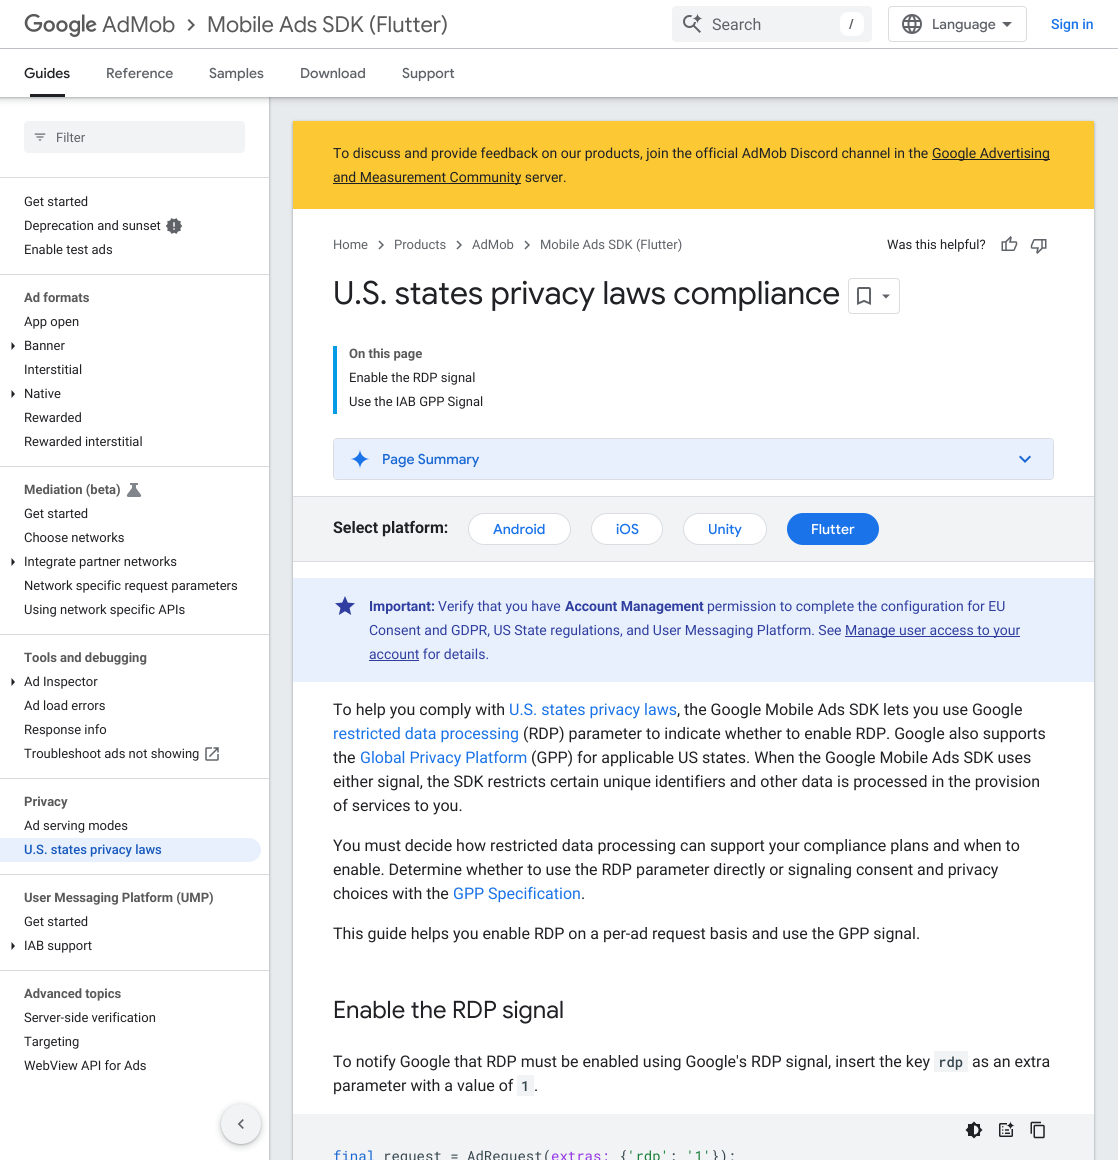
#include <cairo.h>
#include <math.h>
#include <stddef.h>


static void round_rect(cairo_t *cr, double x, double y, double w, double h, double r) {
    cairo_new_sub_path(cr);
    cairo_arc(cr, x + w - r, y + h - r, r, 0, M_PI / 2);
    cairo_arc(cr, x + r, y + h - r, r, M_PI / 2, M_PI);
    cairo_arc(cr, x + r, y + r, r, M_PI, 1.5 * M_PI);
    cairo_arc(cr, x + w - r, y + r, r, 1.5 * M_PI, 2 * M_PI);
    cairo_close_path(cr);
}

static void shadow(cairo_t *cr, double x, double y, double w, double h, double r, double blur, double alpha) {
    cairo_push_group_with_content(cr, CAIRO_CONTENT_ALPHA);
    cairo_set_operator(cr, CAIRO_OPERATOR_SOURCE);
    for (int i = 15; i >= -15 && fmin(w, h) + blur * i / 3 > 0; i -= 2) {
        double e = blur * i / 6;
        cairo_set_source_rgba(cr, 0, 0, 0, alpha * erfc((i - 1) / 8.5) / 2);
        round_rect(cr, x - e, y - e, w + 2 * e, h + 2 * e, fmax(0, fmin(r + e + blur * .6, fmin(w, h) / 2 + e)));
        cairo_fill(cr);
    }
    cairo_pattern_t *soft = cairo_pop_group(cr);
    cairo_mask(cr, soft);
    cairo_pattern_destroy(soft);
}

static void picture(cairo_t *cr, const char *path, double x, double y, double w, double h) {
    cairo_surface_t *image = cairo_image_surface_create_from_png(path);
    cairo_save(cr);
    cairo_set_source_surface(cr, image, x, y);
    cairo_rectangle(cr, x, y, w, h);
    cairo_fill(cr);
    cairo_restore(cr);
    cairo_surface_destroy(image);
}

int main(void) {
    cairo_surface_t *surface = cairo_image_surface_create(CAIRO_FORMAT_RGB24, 1118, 1160);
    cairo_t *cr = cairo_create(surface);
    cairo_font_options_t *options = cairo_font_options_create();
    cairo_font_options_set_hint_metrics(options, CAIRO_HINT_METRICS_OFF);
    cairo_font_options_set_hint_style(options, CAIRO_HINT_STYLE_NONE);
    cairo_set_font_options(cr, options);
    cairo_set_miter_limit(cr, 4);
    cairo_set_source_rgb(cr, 0.91, 0.918, 0.929);
    cairo_paint(cr);
    cairo_set_source_rgb(cr, 0.235, 0.251, 0.263);
    shadow(cr, -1, 0, 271, 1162, 0, 1.5, 0.15);
    shadow(cr, 0, 1, 269, 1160, 0, 1, 0.3);
    cairo_set_source_rgb(cr, 1, 1, 1);
    cairo_rectangle(cr, 0, 97, 269, 1063);
    cairo_fill(cr);
    cairo_set_source_rgb(cr, 0.235, 0.251, 0.263);
    shadow(cr, -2, 49, 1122, 52, 0, 3, 0.15);
    shadow(cr, 0, 50, 1118, 48, 0, 1, 0.3);
    cairo_set_source_rgb(cr, 1, 1, 1);
    cairo_rectangle(cr, 0, 0, 1118, 48);
    cairo_fill(cr);
    cairo_set_source_rgb(cr, 0.741, 0.757, 0.776);
    cairo_rectangle(cr, 0, 48, 1118, 1);
    cairo_fill(cr);
    picture(cr, "img1.png", 24, 13, 73, 24);
    cairo_select_font_face(cr, "Google Sans", CAIRO_FONT_SLANT_NORMAL, CAIRO_FONT_WEIGHT_NORMAL);
    cairo_set_font_size(cr, 22);
    cairo_set_source_rgb(cr, 0.349, 0.349, 0.349);
    cairo_move_to(cr, 102, 32);
    cairo_show_text(cr, "AdMob");
    picture(cr, "img2.png", 187, 19, 8, 12);
    cairo_move_to(cr, 207, 32);
    cairo_show_text(cr, "Mobile Ads SDK (Flutter)");
    cairo_set_source_rgb(cr, 0.945, 0.953, 0.957);
    round_rect(cr, 672, 6, 200, 36, 4);
    cairo_fill(cr);
    picture(cr, "img3.png", 683, 13, 20, 20);
    cairo_select_font_face(cr, "Roboto", CAIRO_FONT_SLANT_NORMAL, CAIRO_FONT_WEIGHT_NORMAL);
    cairo_set_font_size(cr, 16);
    cairo_set_source_rgb(cr, 0.373, 0.388, 0.408);
    cairo_move_to(cr, 712, 30);
    cairo_show_text(cr, "Search");
    cairo_set_source_rgb(cr, 1, 1, 1);
    round_rect(cr, 840, 12, 24, 24, 8);
    cairo_fill(cr);
    cairo_select_font_face(cr, "Google Sans Medium", CAIRO_FONT_SLANT_NORMAL, CAIRO_FONT_WEIGHT_NORMAL);
    cairo_set_font_size(cr, 14);
    cairo_set_source_rgb(cr, 0.373, 0.388, 0.408);
    cairo_move_to(cr, 849, 29);
    cairo_show_text(cr, "/");
    round_rect(cr, 888.5, 6.5, 138, 35, 3.5);
    cairo_set_source_rgb(cr, 0.855, 0.863, 0.878);
    cairo_set_line_width(cr, 1);
    cairo_stroke(cr);
    picture(cr, "img4.png", 902, 14, 20, 20);
    cairo_set_source_rgb(cr, 0.373, 0.388, 0.408);
    cairo_move_to(cr, 932, 29);
    cairo_show_text(cr, "Language");
    cairo_new_path(cr);
    cairo_move_to(cr, 1007, 27);
    cairo_line_to(cr, 1002, 22);
    cairo_line_to(cr, 1012, 22);
    cairo_close_path(cr);
    cairo_fill(cr);
    cairo_select_font_face(cr, "Roboto Medium", CAIRO_FONT_SLANT_NORMAL, CAIRO_FONT_WEIGHT_NORMAL);
    cairo_set_source_rgb(cr, 0.102, 0.451, 0.91);
    cairo_move_to(cr, 1051, 29);
    cairo_show_text(cr, "Sign in");
    cairo_set_source_rgb(cr, 1, 1, 1);
    cairo_rectangle(cr, 0, 49, 1118, 48);
    cairo_fill(cr);
    cairo_select_font_face(cr, "Google Sans Medium", CAIRO_FONT_SLANT_NORMAL, CAIRO_FONT_WEIGHT_NORMAL);
    cairo_set_source_rgb(cr, 0.125, 0.129, 0.141);
    cairo_move_to(cr, 24, 78);
    cairo_show_text(cr, "Guides");
    cairo_rectangle(cr, 30, 94, 35, 3);
    cairo_fill(cr);
    cairo_set_source_rgb(cr, 0.373, 0.388, 0.408);
    cairo_move_to(cr, 106, 78);
    cairo_show_text(cr, "Reference");
    cairo_move_to(cr, 209, 78);
    cairo_show_text(cr, "Samples");
    cairo_move_to(cr, 300, 78);
    cairo_show_text(cr, "Download");
    cairo_move_to(cr, 402, 78);
    cairo_show_text(cr, "Support");
    cairo_set_source_rgb(cr, 0.855, 0.863, 0.878);
    cairo_rectangle(cr, 0, 177, 269, 1);
    cairo_fill(cr);
    cairo_set_source_rgb(cr, 0.945, 0.953, 0.957);
    round_rect(cr, 24, 121, 221, 32, 4);
    cairo_fill(cr);
    picture(cr, "img5.png", 34, 133, 12, 8);
    cairo_select_font_face(cr, "Roboto", CAIRO_FONT_SLANT_NORMAL, CAIRO_FONT_WEIGHT_NORMAL);
    cairo_set_font_size(cr, 13);
    cairo_set_source_rgb(cr, 0.373, 0.388, 0.408);
    cairo_move_to(cr, 56, 142);
    cairo_show_text(cr, "Filter");
    cairo_set_source_rgb(cr, 0.125, 0.129, 0.141);
    cairo_move_to(cr, 24, 206);
    cairo_show_text(cr, "Get started");
    cairo_move_to(cr, 24, 230);
    cairo_show_text(cr, "Deprecation and sunset");
    picture(cr, "img6.png", 165, 218, 18, 16);
    cairo_move_to(cr, 24, 254);
    cairo_show_text(cr, "Enable test ads");
    cairo_set_source_rgb(cr, 0.855, 0.863, 0.878);
    cairo_rectangle(cr, 0, 274, 269, 1);
    cairo_fill(cr);
    cairo_select_font_face(cr, "Roboto", CAIRO_FONT_SLANT_NORMAL, CAIRO_FONT_WEIGHT_BOLD);
    cairo_set_source_rgb(cr, 0.349, 0.349, 0.349);
    cairo_move_to(cr, 24, 302);
    cairo_show_text(cr, "Ad formats");
    cairo_select_font_face(cr, "Roboto", CAIRO_FONT_SLANT_NORMAL, CAIRO_FONT_WEIGHT_NORMAL);
    cairo_set_source_rgb(cr, 0.125, 0.129, 0.141);
    cairo_move_to(cr, 24, 326);
    cairo_show_text(cr, "App open");
    cairo_new_path(cr);
    cairo_move_to(cr, 11.5, 350);
    cairo_line_to(cr, 11.5, 342);
    cairo_line_to(cr, 15, 346);
    cairo_close_path(cr);
    cairo_fill(cr);
    cairo_move_to(cr, 24, 350);
    cairo_show_text(cr, "Banner");
    cairo_move_to(cr, 24, 374);
    cairo_show_text(cr, "Interstitial");
    cairo_new_path(cr);
    cairo_move_to(cr, 11.5, 398);
    cairo_line_to(cr, 11.5, 390);
    cairo_line_to(cr, 15, 394);
    cairo_close_path(cr);
    cairo_fill(cr);
    cairo_move_to(cr, 24, 398);
    cairo_show_text(cr, "Native");
    cairo_move_to(cr, 24, 422);
    cairo_show_text(cr, "Rewarded");
    cairo_move_to(cr, 24, 446);
    cairo_show_text(cr, "Rewarded interstitial");
    cairo_set_source_rgb(cr, 0.855, 0.863, 0.878);
    cairo_rectangle(cr, 0, 466, 269, 1);
    cairo_fill(cr);
    cairo_select_font_face(cr, "Roboto", CAIRO_FONT_SLANT_NORMAL, CAIRO_FONT_WEIGHT_BOLD);
    cairo_set_source_rgb(cr, 0.349, 0.349, 0.349);
    cairo_move_to(cr, 24, 494);
    cairo_show_text(cr, "Mediation (beta)");
    picture(cr, "img7.png", 126, 483, 16, 14);
    cairo_select_font_face(cr, "Roboto", CAIRO_FONT_SLANT_NORMAL, CAIRO_FONT_WEIGHT_NORMAL);
    cairo_set_source_rgb(cr, 0.125, 0.129, 0.141);
    cairo_move_to(cr, 24, 518);
    cairo_show_text(cr, "Get started");
    cairo_move_to(cr, 24, 542);
    cairo_show_text(cr, "Choose networks");
    cairo_new_path(cr);
    cairo_move_to(cr, 11.5, 566);
    cairo_line_to(cr, 11.5, 558);
    cairo_line_to(cr, 15, 562);
    cairo_close_path(cr);
    cairo_fill(cr);
    cairo_move_to(cr, 24, 566);
    cairo_show_text(cr, "Integrate partner networks");
    cairo_move_to(cr, 24, 590);
    cairo_show_text(cr, "Network specific request parameters");
    cairo_move_to(cr, 24, 614);
    cairo_show_text(cr, "Using network specific APIs");
    cairo_set_source_rgb(cr, 0.855, 0.863, 0.878);
    cairo_rectangle(cr, 0, 634, 269, 1);
    cairo_fill(cr);
    cairo_select_font_face(cr, "Roboto", CAIRO_FONT_SLANT_NORMAL, CAIRO_FONT_WEIGHT_BOLD);
    cairo_set_source_rgb(cr, 0.349, 0.349, 0.349);
    cairo_move_to(cr, 24, 662);
    cairo_show_text(cr, "Tools and debugging");
    cairo_set_source_rgb(cr, 0.125, 0.129, 0.141);
    cairo_new_path(cr);
    cairo_move_to(cr, 11.5, 686);
    cairo_line_to(cr, 11.5, 678);
    cairo_line_to(cr, 15, 682);
    cairo_close_path(cr);
    cairo_fill(cr);
    cairo_select_font_face(cr, "Roboto", CAIRO_FONT_SLANT_NORMAL, CAIRO_FONT_WEIGHT_NORMAL);
    cairo_move_to(cr, 24, 686);
    cairo_show_text(cr, "Ad Inspector");
    cairo_move_to(cr, 24, 710);
    cairo_show_text(cr, "Ad load errors");
    cairo_move_to(cr, 24, 734);
    cairo_show_text(cr, "Response info");
    cairo_move_to(cr, 24, 758);
    cairo_show_text(cr, "Troubleshoot ads not showing");
    picture(cr, "img8.png", 205, 747, 14, 14);
    cairo_set_source_rgb(cr, 0.855, 0.863, 0.878);
    cairo_rectangle(cr, 0, 778, 269, 1);
    cairo_fill(cr);
    cairo_select_font_face(cr, "Roboto", CAIRO_FONT_SLANT_NORMAL, CAIRO_FONT_WEIGHT_BOLD);
    cairo_set_source_rgb(cr, 0.349, 0.349, 0.349);
    cairo_move_to(cr, 24, 806);
    cairo_show_text(cr, "Privacy");
    cairo_select_font_face(cr, "Roboto", CAIRO_FONT_SLANT_NORMAL, CAIRO_FONT_WEIGHT_NORMAL);
    cairo_set_source_rgb(cr, 0.125, 0.129, 0.141);
    cairo_move_to(cr, 24, 830);
    cairo_show_text(cr, "Ad serving modes");
    cairo_set_source_rgb(cr, 0.91, 0.941, 0.996);
    cairo_new_path(cr);
    cairo_move_to(cr, 0, 838);
    cairo_line_to(cr, 249, 838);
    cairo_curve_to(cr, 255.5, 838, 261, 843.5, 261, 850);
    cairo_curve_to(cr, 261, 856.5, 255.5, 862, 249, 862);
    cairo_line_to(cr, 0, 862);
    cairo_close_path(cr);
    cairo_fill(cr);
    cairo_select_font_face(cr, "Roboto Medium", CAIRO_FONT_SLANT_NORMAL, CAIRO_FONT_WEIGHT_NORMAL);
    cairo_set_source_rgb(cr, 0.094, 0.353, 0.737);
    cairo_move_to(cr, 24, 854);
    cairo_show_text(cr, "U.S. states privacy laws");
    cairo_set_source_rgb(cr, 0.855, 0.863, 0.878);
    cairo_rectangle(cr, 0, 874, 269, 1);
    cairo_fill(cr);
    cairo_select_font_face(cr, "Roboto", CAIRO_FONT_SLANT_NORMAL, CAIRO_FONT_WEIGHT_BOLD);
    cairo_set_source_rgb(cr, 0.349, 0.349, 0.349);
    cairo_move_to(cr, 24, 902);
    cairo_show_text(cr, "User Messaging Platform (UMP)");
    cairo_select_font_face(cr, "Roboto", CAIRO_FONT_SLANT_NORMAL, CAIRO_FONT_WEIGHT_NORMAL);
    cairo_set_source_rgb(cr, 0.125, 0.129, 0.141);
    cairo_move_to(cr, 24, 926);
    cairo_show_text(cr, "Get started");
    cairo_new_path(cr);
    cairo_move_to(cr, 11.5, 950);
    cairo_line_to(cr, 11.5, 942);
    cairo_line_to(cr, 15, 946);
    cairo_close_path(cr);
    cairo_fill(cr);
    cairo_move_to(cr, 24, 950);
    cairo_show_text(cr, "IAB support");
    cairo_set_source_rgb(cr, 0.855, 0.863, 0.878);
    cairo_rectangle(cr, 0, 970, 269, 1);
    cairo_fill(cr);
    cairo_select_font_face(cr, "Roboto", CAIRO_FONT_SLANT_NORMAL, CAIRO_FONT_WEIGHT_BOLD);
    cairo_set_source_rgb(cr, 0.349, 0.349, 0.349);
    cairo_move_to(cr, 24, 998);
    cairo_show_text(cr, "Advanced topics");
    cairo_select_font_face(cr, "Roboto", CAIRO_FONT_SLANT_NORMAL, CAIRO_FONT_WEIGHT_NORMAL);
    cairo_set_source_rgb(cr, 0.125, 0.129, 0.141);
    cairo_move_to(cr, 24, 1022);
    cairo_show_text(cr, "Server-side verification");
    cairo_move_to(cr, 24, 1046);
    cairo_show_text(cr, "Targeting");
    cairo_move_to(cr, 24, 1070);
    cairo_show_text(cr, "WebView API for Ads");
    cairo_set_source_rgb(cr, 0.235, 0.251, 0.263);
    shadow(cr, 219, 1104, 44, 44, 22, 3, 0.15);
    shadow(cr, 221, 1105, 40, 40, 20, 1, 0.3);
    cairo_set_source_rgb(cr, 0.945, 0.953, 0.957);
    cairo_arc(cr, 241, 1124, 20, 0, 2 * M_PI);
    cairo_fill(cr);
    picture(cr, "img9.png", 237, 1119, 7, 10);
    cairo_set_source_rgb(cr, 0.235, 0.251, 0.263);
    shadow(cr, 292, 121, 803, 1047, 3, 1.5, 0.15);
    shadow(cr, 293, 122, 801, 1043, 2, 1, 0.3);
    cairo_set_source_rgb(cr, 1, 1, 1);
    cairo_rectangle(cr, 293, 209, 801, 905);
    cairo_fill(cr);
    cairo_set_source_rgb(cr, 0.988, 0.788, 0.204);
    cairo_rectangle(cr, 293, 121, 801, 88);
    cairo_fill(cr);
    cairo_set_font_size(cr, 14);
    cairo_set_source_rgb(cr, 0.125, 0.129, 0.141);
    cairo_move_to(cr, 333, 158);
    cairo_show_text(cr, "To discuss and provide feedback on our products, join the official AdMob Discord channel in the");
    cairo_rectangle(cr, 932, 159, 118, 1);
    cairo_fill(cr);
    cairo_move_to(cr, 932, 158);
    cairo_show_text(cr, "Google Advertising");
    cairo_rectangle(cr, 333, 183, 188, 1);
    cairo_fill(cr);
    cairo_move_to(cr, 333, 182);
    cairo_show_text(cr, "and Measurement Community server.");
    cairo_set_font_size(cr, 13);
    cairo_set_source_rgb(cr, 0.373, 0.388, 0.408);
    cairo_move_to(cr, 333, 249);
    cairo_show_text(cr, "Home");
    picture(cr, "img10.png", 378, 240, 6, 10);
    cairo_move_to(cr, 394, 249);
    cairo_show_text(cr, "Products");
    picture(cr, "img10.png", 456, 240, 6, 10);
    cairo_move_to(cr, 472, 249);
    cairo_show_text(cr, "AdMob");
    picture(cr, "img10.png", 524, 240, 6, 10);
    cairo_move_to(cr, 540, 249);
    cairo_show_text(cr, "Mobile Ads SDK (Flutter)");
    cairo_set_source_rgb(cr, 0.125, 0.129, 0.141);
    cairo_move_to(cr, 887, 249);
    cairo_show_text(cr, "Was this helpful?");
    picture(cr, "img11.png", 1001, 236, 17, 15);
    picture(cr, "img12.png", 1030, 239, 17, 15);
    cairo_select_font_face(cr, "Google Sans", CAIRO_FONT_SLANT_NORMAL, CAIRO_FONT_WEIGHT_NORMAL);
    cairo_set_font_size(cr, 32);
    cairo_move_to(cr, 333, 304);
    cairo_show_text(cr, "U.S. states privacy laws compliance");
    round_rect(cr, 848.5, 278.5, 51, 35, 3.5);
    cairo_set_source_rgb(cr, 0.855, 0.863, 0.878);
    cairo_stroke(cr);
    picture(cr, "img13.png", 857, 287, 14, 18);
    cairo_set_source_rgb(cr, 0.373, 0.388, 0.408);
    cairo_new_path(cr);
    cairo_move_to(cr, 882, 294.5);
    cairo_line_to(cr, 890, 294.5);
    cairo_line_to(cr, 886, 298.5);
    cairo_close_path(cr);
    cairo_fill(cr);
    cairo_set_source_rgb(cr, 0.012, 0.608, 0.898);
    cairo_rectangle(cr, 333, 346, 4, 68);
    cairo_fill(cr);
    cairo_select_font_face(cr, "Roboto", CAIRO_FONT_SLANT_NORMAL, CAIRO_FONT_WEIGHT_BOLD);
    cairo_set_font_size(cr, 13);
    cairo_set_source_rgb(cr, 0.349, 0.349, 0.349);
    cairo_move_to(cr, 349, 358);
    cairo_show_text(cr, "On this page");
    cairo_select_font_face(cr, "Roboto", CAIRO_FONT_SLANT_NORMAL, CAIRO_FONT_WEIGHT_NORMAL);
    cairo_set_source_rgb(cr, 0.125, 0.129, 0.141);
    cairo_move_to(cr, 349, 382);
    cairo_show_text(cr, "Enable the RDP signal");
    cairo_move_to(cr, 349, 406);
    cairo_show_text(cr, "Use the IAB GPP Signal");
    round_rect(cr, 333.5, 438.5, 720, 41, 3.5);
    cairo_set_source_rgb(cr, 0.855, 0.863, 0.878);
    cairo_stroke(cr);
    cairo_set_source_rgb(cr, 0.91, 0.941, 0.996);
    round_rect(cr, 334, 439, 719, 40, 3);
    cairo_fill(cr);
    picture(cr, "img14.png", 350, 449, 20, 20);
    cairo_select_font_face(cr, "Google Sans Medium", CAIRO_FONT_SLANT_NORMAL, CAIRO_FONT_WEIGHT_NORMAL);
    cairo_set_font_size(cr, 14);
    cairo_set_source_rgb(cr, 0.098, 0.404, 0.824);
    cairo_move_to(cr, 382, 464);
    cairo_show_text(cr, "Page Summary");
    picture(cr, "img15.png", 1019, 455, 12, 8);
    cairo_set_source_rgb(cr, 0.945, 0.953, 0.957);
    cairo_rectangle(cr, 293, 497, 801, 64);
    cairo_fill(cr);
    cairo_set_source_rgb(cr, 0.855, 0.863, 0.878);
    cairo_rectangle(cr, 293, 496, 801, 1);
    cairo_fill(cr);
    cairo_rectangle(cr, 293, 561, 801, 1);
    cairo_fill(cr);
    cairo_select_font_face(cr, "Roboto", CAIRO_FONT_SLANT_NORMAL, CAIRO_FONT_WEIGHT_BOLD);
    cairo_set_font_size(cr, 16);
    cairo_set_source_rgb(cr, 0.125, 0.129, 0.141);
    cairo_move_to(cr, 333, 533);
    cairo_show_text(cr, "Select platform:");
    cairo_set_source_rgb(cr, 1, 1, 1);
    round_rect(cr, 468.5, 513.5, 102, 31, 15.5);
    cairo_fill_preserve(cr);
    cairo_set_source_rgb(cr, 0.855, 0.863, 0.878);
    cairo_stroke(cr);
    cairo_select_font_face(cr, "Google Sans Medium", CAIRO_FONT_SLANT_NORMAL, CAIRO_FONT_WEIGHT_NORMAL);
    cairo_set_font_size(cr, 14);
    cairo_set_source_rgb(cr, 0.102, 0.451, 0.91);
    cairo_move_to(cr, 493, 534);
    cairo_show_text(cr, "Android");
    cairo_set_source_rgb(cr, 1, 1, 1);
    round_rect(cr, 591.5, 513.5, 71, 31, 15.5);
    cairo_fill_preserve(cr);
    cairo_set_source_rgb(cr, 0.855, 0.863, 0.878);
    cairo_stroke(cr);
    cairo_set_source_rgb(cr, 0.102, 0.451, 0.91);
    cairo_move_to(cr, 616, 534);
    cairo_show_text(cr, "iOS");
    cairo_set_source_rgb(cr, 1, 1, 1);
    round_rect(cr, 683.5, 513.5, 83, 31, 15.5);
    cairo_fill_preserve(cr);
    cairo_set_source_rgb(cr, 0.855, 0.863, 0.878);
    cairo_stroke(cr);
    cairo_set_source_rgb(cr, 0.102, 0.451, 0.91);
    cairo_move_to(cr, 708, 534);
    cairo_show_text(cr, "Unity");
    round_rect(cr, 787, 513, 92, 32, 16);
    cairo_fill(cr);
    cairo_set_source_rgb(cr, 1, 1, 1);
    cairo_move_to(cr, 811, 534);
    cairo_show_text(cr, "Flutter");
    cairo_set_source_rgb(cr, 0.91, 0.941, 0.996);
    cairo_rectangle(cr, 293, 578, 801, 104);
    cairo_fill(cr);
    picture(cr, "img16.png", 335, 596, 20, 19);
    cairo_select_font_face(cr, "Roboto", CAIRO_FONT_SLANT_NORMAL, CAIRO_FONT_WEIGHT_BOLD);
    cairo_set_source_rgb(cr, 0.188, 0.247, 0.624);
    cairo_move_to(cr, 369, 611);
    cairo_show_text(cr, "Important:");
    cairo_select_font_face(cr, "Roboto", CAIRO_FONT_SLANT_NORMAL, CAIRO_FONT_WEIGHT_NORMAL);
    cairo_move_to(cr, 438, 611);
    cairo_show_text(cr, "Verify that you have");
    cairo_select_font_face(cr, "Roboto", CAIRO_FONT_SLANT_NORMAL, CAIRO_FONT_WEIGHT_BOLD);
    cairo_move_to(cr, 565, 611);
    cairo_show_text(cr, "Account Management");
    cairo_select_font_face(cr, "Roboto", CAIRO_FONT_SLANT_NORMAL, CAIRO_FONT_WEIGHT_NORMAL);
    cairo_move_to(cr, 707, 611);
    cairo_show_text(cr, "permission to complete the configuration for EU");
    cairo_move_to(cr, 369, 635);
    cairo_show_text(cr, "Consent and GDPR, US State regulations, and User Messaging Platform. See");
    cairo_rectangle(cr, 845, 636, 175, 1);
    cairo_fill(cr);
    cairo_move_to(cr, 845, 635);
    cairo_show_text(cr, "Manage user access to your");
    cairo_move_to(cr, 369, 659);
    cairo_show_text(cr, "account for details.");
    cairo_rectangle(cr, 369, 660, 50, 1);
    cairo_fill(cr);
    cairo_set_font_size(cr, 16);
    cairo_set_source_rgb(cr, 0.125, 0.129, 0.141);
    cairo_move_to(cr, 333, 715);
    cairo_show_text(cr, "To help you comply with");
    cairo_set_source_rgb(cr, 0.102, 0.451, 0.91);
    cairo_move_to(cr, 509, 715);
    cairo_show_text(cr, "U.S. states privacy laws");
    cairo_set_source_rgb(cr, 0.125, 0.129, 0.141);
    cairo_move_to(cr, 677, 715);
    cairo_show_text(cr, ", the Google Mobile Ads SDK lets you use Google");
    cairo_set_source_rgb(cr, 0.102, 0.451, 0.91);
    cairo_move_to(cr, 333, 739);
    cairo_show_text(cr, "restricted data processing");
    cairo_set_source_rgb(cr, 0.125, 0.129, 0.141);
    cairo_move_to(cr, 523, 739);
    cairo_show_text(cr, "(RDP) parameter to indicate whether to enable RDP. Google also supports");
    cairo_move_to(cr, 333, 763);
    cairo_show_text(cr, "the");
    cairo_set_source_rgb(cr, 0.102, 0.451, 0.91);
    cairo_move_to(cr, 360, 763);
    cairo_show_text(cr, "Global Privacy Platform");
    cairo_set_source_rgb(cr, 0.125, 0.129, 0.141);
    cairo_move_to(cr, 531, 763);
    cairo_show_text(cr, "(GPP) for applicable US states. When the Google Mobile Ads SDK uses");
    cairo_move_to(cr, 333, 787);
    cairo_show_text(cr, "either signal, the SDK restricts certain unique identifiers and other data is processed in the provision");
    cairo_move_to(cr, 333, 811);
    cairo_show_text(cr, "of services to you.");
    cairo_move_to(cr, 333, 851);
    cairo_show_text(cr, "You must decide how restricted data processing can support your compliance plans and when to");
    cairo_move_to(cr, 333, 875);
    cairo_show_text(cr, "enable. Determine whether to use the RDP parameter directly or signaling consent and privacy");
    cairo_move_to(cr, 333, 899);
    cairo_show_text(cr, "choices with the");
    cairo_set_source_rgb(cr, 0.102, 0.451, 0.91);
    cairo_move_to(cr, 453, 899);
    cairo_show_text(cr, "GPP Specification");
    cairo_set_source_rgb(cr, 0.125, 0.129, 0.141);
    cairo_move_to(cr, 581, 899);
    cairo_show_text(cr, ".");
    cairo_move_to(cr, 333, 939);
    cairo_show_text(cr, "This guide helps you enable RDP on a per-ad request basis and use the GPP signal.");
    cairo_select_font_face(cr, "Google Sans", CAIRO_FONT_SLANT_NORMAL, CAIRO_FONT_WEIGHT_NORMAL);
    cairo_set_font_size(cr, 24);
    cairo_move_to(cr, 333, 1018);
    cairo_show_text(cr, "Enable the RDP signal");
    cairo_select_font_face(cr, "Roboto", CAIRO_FONT_SLANT_NORMAL, CAIRO_FONT_WEIGHT_NORMAL);
    cairo_set_font_size(cr, 16);
    cairo_move_to(cr, 333, 1067);
    cairo_show_text(cr, "To notify Google that RDP must be enabled using Google's RDP signal, insert the key");
    cairo_set_source_rgb(cr, 0.945, 0.953, 0.957);
    cairo_rectangle(cr, 934, 1051, 34, 21);
    cairo_fill(cr);
    cairo_select_font_face(cr, "Roboto Mono Medium", CAIRO_FONT_SLANT_NORMAL, CAIRO_FONT_WEIGHT_NORMAL);
    cairo_set_font_size(cr, 14);
    cairo_set_source_rgb(cr, 0.216, 0.278, 0.31);
    cairo_move_to(cr, 938, 1067);
    cairo_show_text(cr, "rdp");
    cairo_select_font_face(cr, "Roboto", CAIRO_FONT_SLANT_NORMAL, CAIRO_FONT_WEIGHT_NORMAL);
    cairo_set_font_size(cr, 16);
    cairo_set_source_rgb(cr, 0.125, 0.129, 0.141);
    cairo_move_to(cr, 972, 1067);
    cairo_show_text(cr, "as an extra");
    cairo_move_to(cr, 333, 1091);
    cairo_show_text(cr, "parameter with a value of");
    cairo_set_source_rgb(cr, 0.945, 0.953, 0.957);
    cairo_rectangle(cr, 517, 1075, 17, 21);
    cairo_fill(cr);
    cairo_select_font_face(cr, "Roboto Mono Medium", CAIRO_FONT_SLANT_NORMAL, CAIRO_FONT_WEIGHT_NORMAL);
    cairo_set_font_size(cr, 14);
    cairo_set_source_rgb(cr, 0.216, 0.278, 0.31);
    cairo_move_to(cr, 521, 1091);
    cairo_show_text(cr, "1");
    cairo_select_font_face(cr, "Roboto", CAIRO_FONT_SLANT_NORMAL, CAIRO_FONT_WEIGHT_NORMAL);
    cairo_set_font_size(cr, 16);
    cairo_set_source_rgb(cr, 0.125, 0.129, 0.141);
    cairo_move_to(cr, 534, 1091);
    cairo_show_text(cr, ".");
    cairo_set_source_rgb(cr, 0.945, 0.953, 0.957);
    cairo_rectangle(cr, 293, 1114, 801, 46);
    cairo_fill(cr);
    picture(cr, "img17.png", 965, 1121, 18, 18);
    picture(cr, "img18.png", 999, 1121, 16, 16);
    picture(cr, "img19.png", 1030, 1121, 15, 18);
    cairo_select_font_face(cr, "Roboto Mono", CAIRO_FONT_SLANT_NORMAL, CAIRO_FONT_WEIGHT_NORMAL);
    cairo_set_font_size(cr, 14);
    cairo_set_source_rgb(cr, 0.098, 0.404, 0.824);
    cairo_move_to(cr, 333, 1161);
    cairo_show_text(cr, "final");
    cairo_set_source_rgb(cr, 0.216, 0.278, 0.31);
    cairo_move_to(cr, 383, 1161);
    cairo_show_text(cr, "request = AdRequest(");
    cairo_set_source_rgb(cr, 0.576, 0.204, 0.902);
    cairo_move_to(cr, 551, 1161);
    cairo_show_text(cr, "extras:");
    cairo_set_source_rgb(cr, 0.216, 0.278, 0.31);
    cairo_move_to(cr, 619, 1161);
    cairo_show_text(cr, "{");
    cairo_set_source_rgb(cr, 0.094, 0.502, 0.22);
    cairo_move_to(cr, 627, 1161);
    cairo_show_text(cr, "'rdp'");
    cairo_set_source_rgb(cr, 0.216, 0.278, 0.31);
    cairo_move_to(cr, 669, 1161);
    cairo_show_text(cr, ":");
    cairo_set_source_rgb(cr, 0.094, 0.502, 0.22);
    cairo_move_to(cr, 686, 1161);
    cairo_show_text(cr, "'1'");
    cairo_set_source_rgb(cr, 0.216, 0.278, 0.31);
    cairo_move_to(cr, 711, 1161);
    cairo_show_text(cr, "});");
    cairo_surface_write_to_png(surface, "page.png");
    cairo_font_options_destroy(options);
    cairo_destroy(cr);
    cairo_surface_destroy(surface);
    return 0;
}
